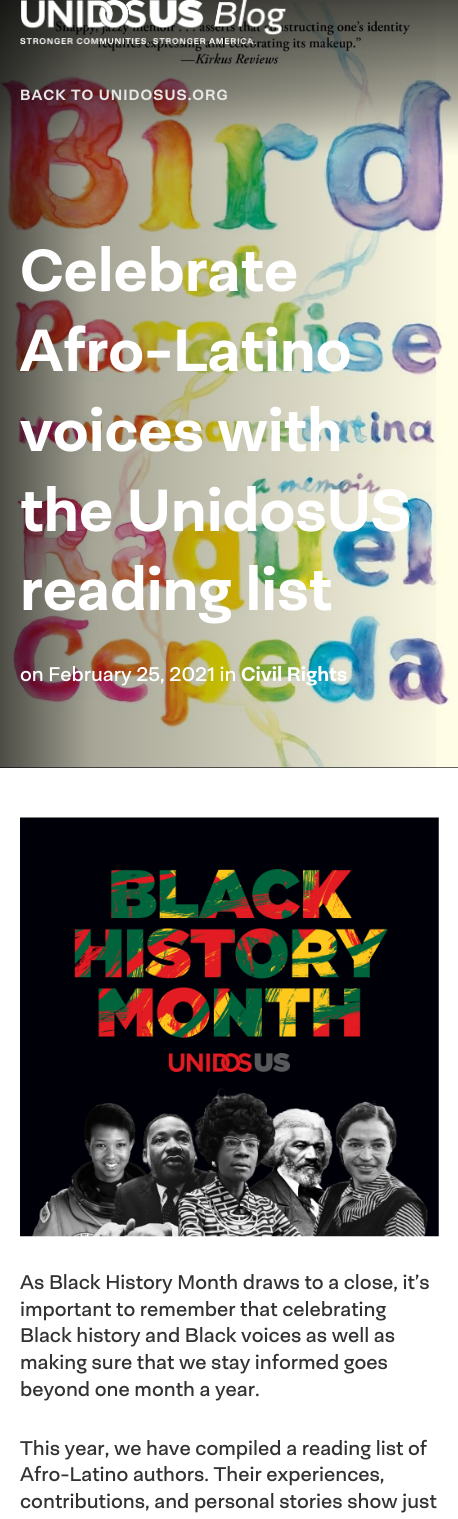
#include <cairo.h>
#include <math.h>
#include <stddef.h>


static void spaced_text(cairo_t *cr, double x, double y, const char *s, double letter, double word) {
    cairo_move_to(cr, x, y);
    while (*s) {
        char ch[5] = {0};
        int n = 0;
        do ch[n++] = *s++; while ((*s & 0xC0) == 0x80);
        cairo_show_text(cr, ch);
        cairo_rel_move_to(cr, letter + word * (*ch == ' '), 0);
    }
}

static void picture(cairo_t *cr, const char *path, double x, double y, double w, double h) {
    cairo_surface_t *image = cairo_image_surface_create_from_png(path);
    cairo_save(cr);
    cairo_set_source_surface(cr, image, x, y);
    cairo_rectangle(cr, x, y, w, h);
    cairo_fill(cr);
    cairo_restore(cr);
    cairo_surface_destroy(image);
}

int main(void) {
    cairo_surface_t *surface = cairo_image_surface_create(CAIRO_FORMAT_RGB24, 458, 1519);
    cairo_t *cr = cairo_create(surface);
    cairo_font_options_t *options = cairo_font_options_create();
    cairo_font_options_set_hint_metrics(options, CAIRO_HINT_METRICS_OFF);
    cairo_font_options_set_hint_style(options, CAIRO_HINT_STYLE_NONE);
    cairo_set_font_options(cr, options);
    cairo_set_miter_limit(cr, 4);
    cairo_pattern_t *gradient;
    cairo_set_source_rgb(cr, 1, 1, 1);
    cairo_paint(cr);
    cairo_set_source_rgb(cr, 0.196, 0.196, 0.196);
    cairo_rectangle(cr, 0, 767, 458, 1);
    cairo_fill(cr);
    picture(cr, "img2.png", 0, 0, 458, 768);
    gradient = cairo_pattern_create_linear(0, 384, 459, 384);
    cairo_pattern_add_color_stop_rgba(gradient, 0, 0, 0, 0, 0.7);
    cairo_pattern_add_color_stop_rgba(gradient, 0.2, 0, 0, 0, 0.35);
    cairo_pattern_add_color_stop_rgba(gradient, 1, 0, 0, 0, 0);
    cairo_set_source(cr, gradient);
    cairo_pattern_destroy(gradient);
    cairo_rectangle(cr, 0, 0, 436, 768);
    cairo_fill(cr);
    picture(cr, "img1.png", 20, 0, 267, 45);
    cairo_select_font_face(cr, "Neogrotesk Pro", CAIRO_FONT_SLANT_NORMAL, CAIRO_FONT_WEIGHT_BOLD);
    cairo_set_font_size(cr, 15);
    cairo_set_source_rgb(cr, 0.902, 0.902, 0.902);
    spaced_text(cr, 20, 100, "BACK TO UNIDOSUS.ORG", 1.05, 0);
    cairo_select_font_face(cr, "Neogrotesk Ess", CAIRO_FONT_SLANT_NORMAL, CAIRO_FONT_WEIGHT_BOLD);
    cairo_set_font_size(cr, 60);
    cairo_set_source_rgb(cr, 1, 1, 1);
    cairo_move_to(cr, 20, 291);
    cairo_show_text(cr, "Celebrate");
    cairo_move_to(cr, 20, 371);
    cairo_show_text(cr, "Afro-Latino");
    cairo_move_to(cr, 20, 451);
    cairo_show_text(cr, "voices with");
    cairo_move_to(cr, 20, 531);
    cairo_show_text(cr, "the UnidosUS");
    cairo_move_to(cr, 20, 610);
    cairo_show_text(cr, "reading list");
    cairo_select_font_face(cr, "Neogrotesk Pro", CAIRO_FONT_SLANT_NORMAL, CAIRO_FONT_WEIGHT_NORMAL);
    cairo_set_font_size(cr, 20);
    cairo_move_to(cr, 20, 681);
    cairo_show_text(cr, "on February 25, 2021 in");
    cairo_select_font_face(cr, "Neogrotesk Pro", CAIRO_FONT_SLANT_NORMAL, CAIRO_FONT_WEIGHT_BOLD);
    cairo_move_to(cr, 241, 681);
    cairo_show_text(cr, "Civil Rights");
    picture(cr, "img3.png", 20, 817, 419, 420);
    cairo_select_font_face(cr, "Neogrotesk Pro", CAIRO_FONT_SLANT_NORMAL, CAIRO_FONT_WEIGHT_NORMAL);
    cairo_set_source_rgb(cr, 0.196, 0.196, 0.196);
    cairo_move_to(cr, 20, 1289);
    cairo_show_text(cr, "As Black History Month draws to a close, it’s");
    cairo_move_to(cr, 20, 1316);
    cairo_show_text(cr, "important to remember that celebrating");
    cairo_move_to(cr, 20, 1342);
    cairo_show_text(cr, "Black history and Black voices as well as");
    cairo_move_to(cr, 20, 1369);
    cairo_show_text(cr, "making sure that we stay informed goes");
    cairo_move_to(cr, 20, 1396);
    cairo_show_text(cr, "beyond one month a year.");
    cairo_move_to(cr, 20, 1455);
    cairo_show_text(cr, "This year, we have compiled a reading list of");
    cairo_move_to(cr, 20, 1481);
    cairo_show_text(cr, "Afro-Latino authors. Their experiences,");
    cairo_move_to(cr, 20, 1508);
    cairo_show_text(cr, "contributions, and personal stories show just");
    cairo_surface_write_to_png(surface, "page.png");
    cairo_font_options_destroy(options);
    cairo_destroy(cr);
    cairo_surface_destroy(surface);
    return 0;
}
